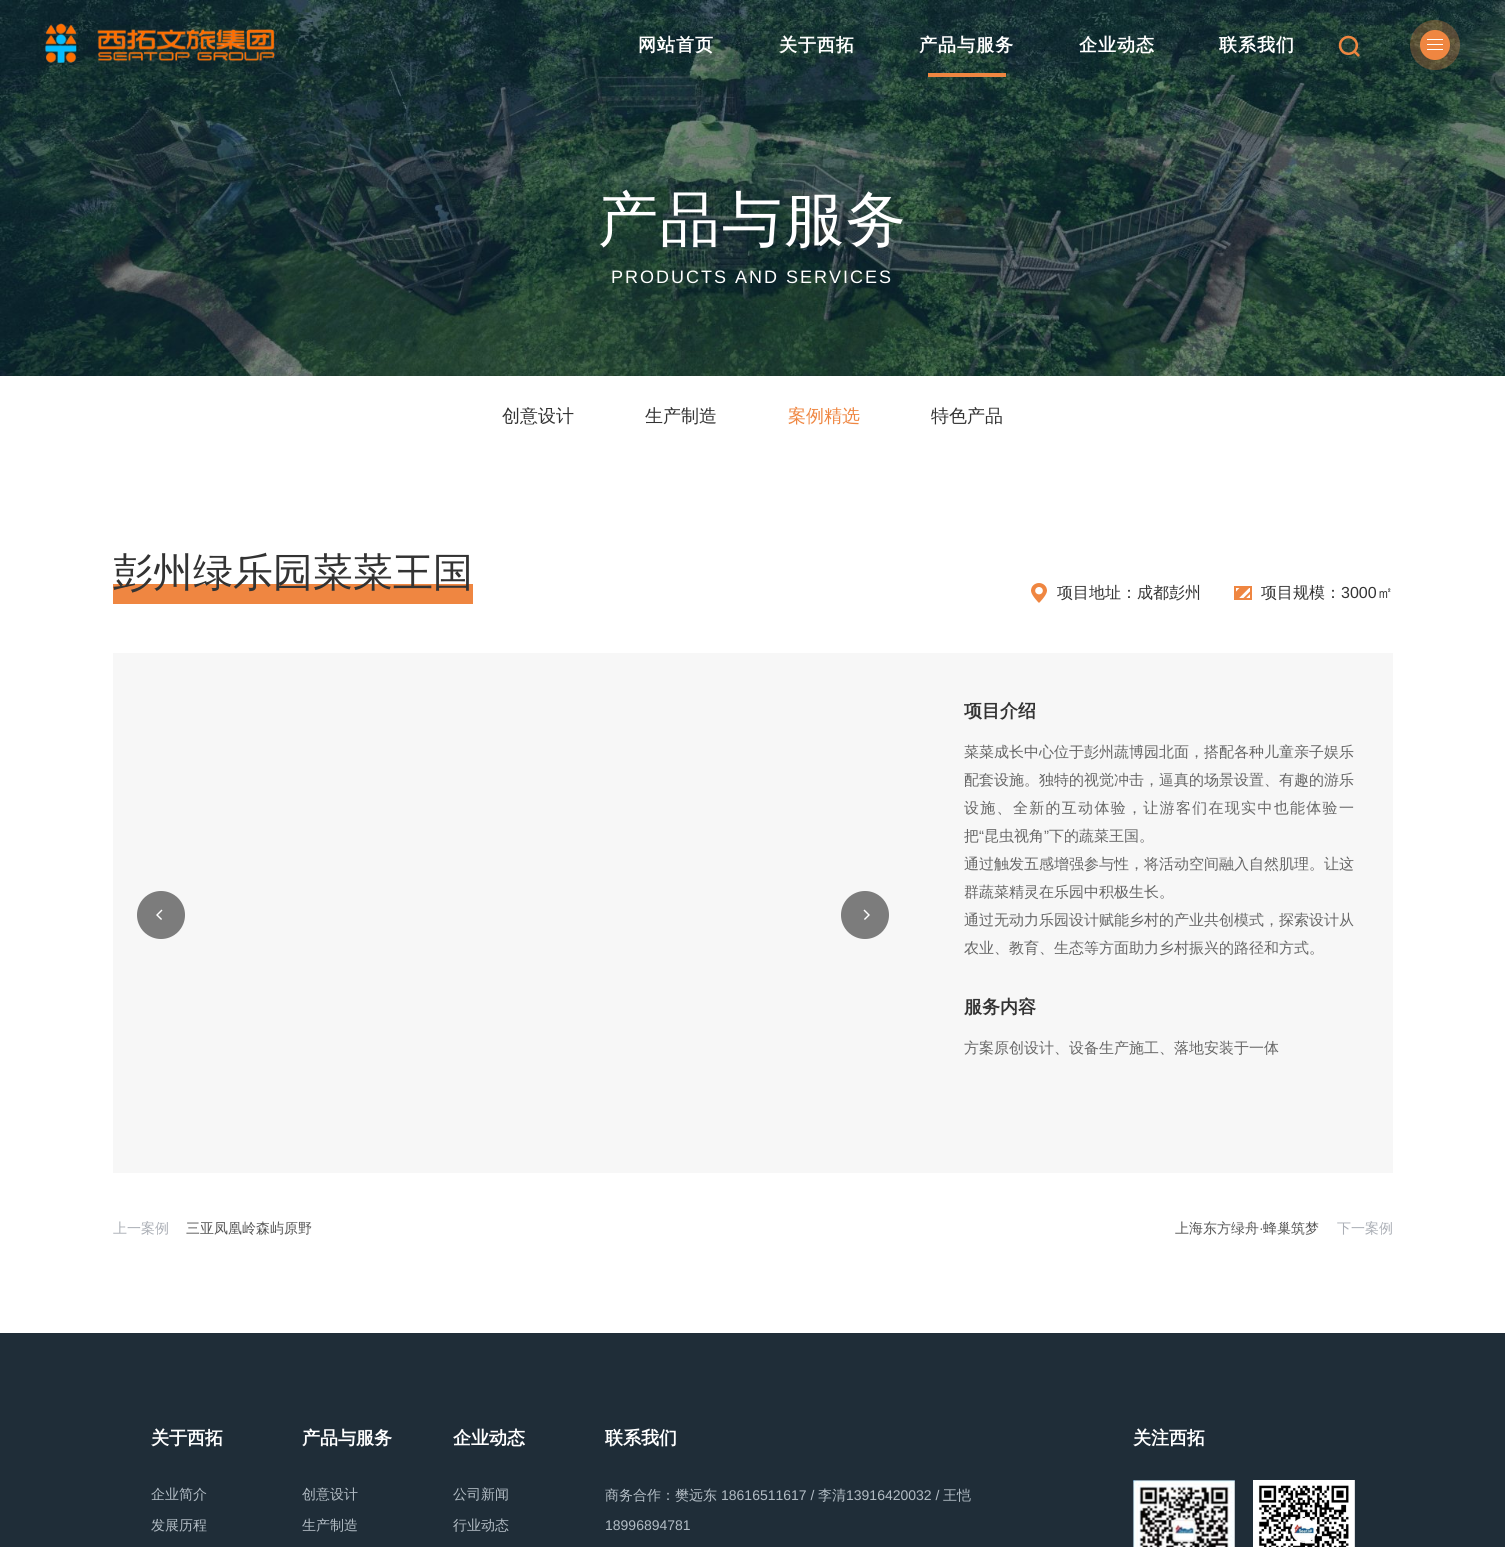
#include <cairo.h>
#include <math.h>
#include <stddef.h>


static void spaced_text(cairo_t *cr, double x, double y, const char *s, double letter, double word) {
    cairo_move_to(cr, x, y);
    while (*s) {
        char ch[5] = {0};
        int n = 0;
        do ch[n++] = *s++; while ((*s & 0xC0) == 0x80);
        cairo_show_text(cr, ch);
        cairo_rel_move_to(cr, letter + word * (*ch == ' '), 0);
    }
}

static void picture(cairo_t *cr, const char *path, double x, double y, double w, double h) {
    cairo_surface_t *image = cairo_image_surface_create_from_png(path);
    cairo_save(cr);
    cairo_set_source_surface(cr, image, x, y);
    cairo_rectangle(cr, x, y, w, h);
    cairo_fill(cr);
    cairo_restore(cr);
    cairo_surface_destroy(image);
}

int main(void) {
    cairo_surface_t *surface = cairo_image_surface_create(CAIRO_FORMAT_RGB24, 1505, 1547);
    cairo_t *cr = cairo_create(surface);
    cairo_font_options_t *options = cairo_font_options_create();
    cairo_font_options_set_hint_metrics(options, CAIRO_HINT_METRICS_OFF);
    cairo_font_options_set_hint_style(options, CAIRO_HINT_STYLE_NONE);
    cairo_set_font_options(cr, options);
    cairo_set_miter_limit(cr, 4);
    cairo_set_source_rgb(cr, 1, 1, 1);
    cairo_paint(cr);
    picture(cr, "img4.png", 0, 0, 1505, 376);
    picture(cr, "img1.png", 45, 23, 230, 40);
    cairo_select_font_face(cr, "WenQuanYi Zen Hei", CAIRO_FONT_SLANT_NORMAL, CAIRO_FONT_WEIGHT_BOLD);
    cairo_set_font_size(cr, 18);
    cairo_set_source_rgb(cr, 1, 1, 1);
    spaced_text(cr, 638, 51, "网站首页", 1, 0);
    spaced_text(cr, 779, 51, "关于西拓", 1, 0);
    spaced_text(cr, 919, 51, "产品与服务", 1, 0);
    cairo_set_source_rgb(cr, 0.937, 0.525, 0.255);
    cairo_rectangle(cr, 928, 73, 78, 4);
    cairo_fill(cr);
    cairo_set_source_rgb(cr, 1, 1, 1);
    spaced_text(cr, 1079, 51, "企业动态", 1, 0);
    spaced_text(cr, 1219, 51, "联系我们", 1, 0);
    picture(cr, "img2.png", 1338, 35, 22, 22);
    picture(cr, "img3.png", 1410, 20, 50, 50);
    cairo_select_font_face(cr, "WenQuanYi Zen Hei Medium", CAIRO_FONT_SLANT_NORMAL, CAIRO_FONT_WEIGHT_NORMAL);
    cairo_set_font_size(cr, 60);
    spaced_text(cr, 598, 240, "产品与服务", 2, 0);
    cairo_select_font_face(cr, "Liberation Sans", CAIRO_FONT_SLANT_NORMAL, CAIRO_FONT_WEIGHT_NORMAL);
    cairo_set_font_size(cr, 18);
    spaced_text(cr, 611, 283, "PRODUCTS AND SERVICES", 2, 0);
    cairo_select_font_face(cr, "WenQuanYi Zen Hei Medium", CAIRO_FONT_SLANT_NORMAL, CAIRO_FONT_WEIGHT_NORMAL);
    cairo_set_source_rgb(cr, 0.2, 0.2, 0.2);
    cairo_move_to(cr, 502, 422);
    cairo_show_text(cr, "创意设计");
    cairo_move_to(cr, 645, 422);
    cairo_show_text(cr, "生产制造");
    cairo_set_source_rgb(cr, 0.937, 0.525, 0.255);
    cairo_move_to(cr, 788, 422);
    cairo_show_text(cr, "案例精选");
    cairo_set_source_rgb(cr, 0.2, 0.2, 0.2);
    cairo_move_to(cr, 931, 422);
    cairo_show_text(cr, "特色产品");
    cairo_set_source_rgb(cr, 0.937, 0.525, 0.255);
    cairo_rectangle(cr, 113, 584, 360, 20);
    cairo_fill(cr);
    cairo_set_font_size(cr, 40);
    cairo_set_source_rgb(cr, 0.2, 0.2, 0.2);
    cairo_move_to(cr, 113, 586);
    cairo_show_text(cr, "彭州绿乐园菜菜王国");
    picture(cr, "img5.png", 1031, 583, 16, 20);
    cairo_set_font_size(cr, 16);
    cairo_move_to(cr, 1057, 598);
    cairo_show_text(cr, "项目地址：成都彭州");
    picture(cr, "img6.png", 1234, 586, 18, 14);
    cairo_move_to(cr, 1261, 598);
    cairo_show_text(cr, "项目规模：");
    cairo_select_font_face(cr, "Liberation Sans", CAIRO_FONT_SLANT_NORMAL, CAIRO_FONT_WEIGHT_NORMAL);
    cairo_move_to(cr, 1341, 598);
    cairo_show_text(cr, "3000");
    cairo_select_font_face(cr, "WenQuanYi Zen Hei Medium", CAIRO_FONT_SLANT_NORMAL, CAIRO_FONT_WEIGHT_NORMAL);
    cairo_move_to(cr, 1377, 598);
    cairo_show_text(cr, "㎡");
    cairo_set_source_rgb(cr, 0.965, 0.965, 0.965);
    cairo_rectangle(cr, 113, 653, 1280, 520);
    cairo_fill(cr);
    picture(cr, "img7.png", 137, 891, 48, 48);
    picture(cr, "img8.png", 841, 891, 48, 48);
    cairo_select_font_face(cr, "WenQuanYi Zen Hei", CAIRO_FONT_SLANT_NORMAL, CAIRO_FONT_WEIGHT_BOLD);
    cairo_set_font_size(cr, 18);
    cairo_set_source_rgb(cr, 0.2, 0.2, 0.2);
    cairo_move_to(cr, 964, 717);
    cairo_show_text(cr, "项目介绍");
    cairo_select_font_face(cr, "WenQuanYi Zen Hei Medium", CAIRO_FONT_SLANT_NORMAL, CAIRO_FONT_WEIGHT_NORMAL);
    cairo_set_font_size(cr, 15);
    cairo_set_source_rgb(cr, 0.4, 0.4, 0.4);
    cairo_move_to(cr, 964, 757);
    cairo_show_text(cr, "菜菜成长中心位于彭州蔬博园北面，搭配各种儿童亲子娱乐");
    cairo_move_to(cr, 964, 785);
    cairo_show_text(cr, "配套设施。独特的视觉冲击，逼真的场景设置、有趣的游乐");
    spaced_text(cr, 964, 813, "设施、全新的互动体验，让游客们在现实中也能体验一", 1.3, 0);
    cairo_move_to(cr, 964, 841);
    cairo_show_text(cr, "把");
    cairo_select_font_face(cr, "Liberation Sans", CAIRO_FONT_SLANT_NORMAL, CAIRO_FONT_WEIGHT_NORMAL);
    cairo_move_to(cr, 979, 841);
    cairo_show_text(cr, "“");
    cairo_select_font_face(cr, "WenQuanYi Zen Hei Medium", CAIRO_FONT_SLANT_NORMAL, CAIRO_FONT_WEIGHT_NORMAL);
    cairo_move_to(cr, 984, 841);
    cairo_show_text(cr, "昆虫视角");
    cairo_select_font_face(cr, "Liberation Sans", CAIRO_FONT_SLANT_NORMAL, CAIRO_FONT_WEIGHT_NORMAL);
    cairo_move_to(cr, 1044, 841);
    cairo_show_text(cr, "”");
    cairo_select_font_face(cr, "WenQuanYi Zen Hei Medium", CAIRO_FONT_SLANT_NORMAL, CAIRO_FONT_WEIGHT_NORMAL);
    cairo_move_to(cr, 1049, 841);
    cairo_show_text(cr, "下的蔬菜王国。");
    cairo_move_to(cr, 964, 869);
    cairo_show_text(cr, "通过触发五感增强参与性，将活动空间融入自然肌理。让这");
    cairo_move_to(cr, 964, 897);
    cairo_show_text(cr, "群蔬菜精灵在乐园中积极生长。");
    cairo_move_to(cr, 964, 925);
    cairo_show_text(cr, "通过无动力乐园设计赋能乡村的产业共创模式，探索设计从");
    cairo_move_to(cr, 964, 953);
    cairo_show_text(cr, "农业、教育、生态等方面助力乡村振兴的路径和方式。");
    cairo_select_font_face(cr, "WenQuanYi Zen Hei", CAIRO_FONT_SLANT_NORMAL, CAIRO_FONT_WEIGHT_BOLD);
    cairo_set_font_size(cr, 18);
    cairo_set_source_rgb(cr, 0.2, 0.2, 0.2);
    cairo_move_to(cr, 964, 1013);
    cairo_show_text(cr, "服务内容");
    cairo_select_font_face(cr, "WenQuanYi Zen Hei Medium", CAIRO_FONT_SLANT_NORMAL, CAIRO_FONT_WEIGHT_NORMAL);
    cairo_set_font_size(cr, 15);
    cairo_set_source_rgb(cr, 0.4, 0.4, 0.4);
    cairo_move_to(cr, 964, 1053);
    cairo_show_text(cr, "方案原创设计、设备生产施工、落地安装于一体");
    cairo_set_font_size(cr, 14);
    cairo_set_source_rgb(cr, 0.667, 0.682, 0.71);
    cairo_move_to(cr, 113, 1233);
    cairo_show_text(cr, "上一案例");
    cairo_set_source_rgb(cr, 0.333, 0.333, 0.333);
    cairo_move_to(cr, 186, 1233);
    cairo_show_text(cr, "三亚凤凰岭森屿原野");
    cairo_move_to(cr, 1175, 1233);
    cairo_show_text(cr, "上海东方绿舟");
    cairo_select_font_face(cr, "Liberation Sans", CAIRO_FONT_SLANT_NORMAL, CAIRO_FONT_WEIGHT_NORMAL);
    cairo_move_to(cr, 1259, 1233);
    cairo_show_text(cr, "·");
    cairo_select_font_face(cr, "WenQuanYi Zen Hei Medium", CAIRO_FONT_SLANT_NORMAL, CAIRO_FONT_WEIGHT_NORMAL);
    cairo_move_to(cr, 1263, 1233);
    cairo_show_text(cr, "蜂巢筑梦");
    cairo_set_source_rgb(cr, 0.667, 0.682, 0.71);
    cairo_move_to(cr, 1337, 1233);
    cairo_show_text(cr, "下一案例");
    cairo_set_source_rgb(cr, 0.122, 0.176, 0.22);
    cairo_rectangle(cr, 0, 1333, 1505, 214);
    cairo_fill(cr);
    cairo_select_font_face(cr, "WenQuanYi Zen Hei", CAIRO_FONT_SLANT_NORMAL, CAIRO_FONT_WEIGHT_BOLD);
    cairo_set_font_size(cr, 18);
    cairo_set_source_rgb(cr, 1, 1, 1);
    cairo_move_to(cr, 151, 1444);
    cairo_show_text(cr, "关于西拓");
    cairo_select_font_face(cr, "WenQuanYi Zen Hei Medium", CAIRO_FONT_SLANT_NORMAL, CAIRO_FONT_WEIGHT_NORMAL);
    cairo_set_font_size(cr, 14);
    cairo_set_source_rgb(cr, 0.698, 0.737, 0.769);
    cairo_move_to(cr, 151, 1499);
    cairo_show_text(cr, "企业简介");
    cairo_move_to(cr, 151, 1530);
    cairo_show_text(cr, "发展历程");
    cairo_select_font_face(cr, "WenQuanYi Zen Hei", CAIRO_FONT_SLANT_NORMAL, CAIRO_FONT_WEIGHT_BOLD);
    cairo_set_font_size(cr, 18);
    cairo_set_source_rgb(cr, 1, 1, 1);
    cairo_move_to(cr, 302, 1444);
    cairo_show_text(cr, "产品与服务");
    cairo_select_font_face(cr, "WenQuanYi Zen Hei Medium", CAIRO_FONT_SLANT_NORMAL, CAIRO_FONT_WEIGHT_NORMAL);
    cairo_set_font_size(cr, 14);
    cairo_set_source_rgb(cr, 0.698, 0.737, 0.769);
    cairo_move_to(cr, 302, 1499);
    cairo_show_text(cr, "创意设计");
    cairo_move_to(cr, 302, 1530);
    cairo_show_text(cr, "生产制造");
    cairo_select_font_face(cr, "WenQuanYi Zen Hei", CAIRO_FONT_SLANT_NORMAL, CAIRO_FONT_WEIGHT_BOLD);
    cairo_set_font_size(cr, 18);
    cairo_set_source_rgb(cr, 1, 1, 1);
    cairo_move_to(cr, 453, 1444);
    cairo_show_text(cr, "企业动态");
    cairo_select_font_face(cr, "WenQuanYi Zen Hei Medium", CAIRO_FONT_SLANT_NORMAL, CAIRO_FONT_WEIGHT_NORMAL);
    cairo_set_font_size(cr, 14);
    cairo_set_source_rgb(cr, 0.698, 0.737, 0.769);
    cairo_move_to(cr, 453, 1499);
    cairo_show_text(cr, "公司新闻");
    cairo_move_to(cr, 453, 1530);
    cairo_show_text(cr, "行业动态");
    cairo_select_font_face(cr, "WenQuanYi Zen Hei", CAIRO_FONT_SLANT_NORMAL, CAIRO_FONT_WEIGHT_BOLD);
    cairo_set_font_size(cr, 18);
    cairo_set_source_rgb(cr, 1, 1, 1);
    cairo_move_to(cr, 605, 1444);
    cairo_show_text(cr, "联系我们");
    cairo_select_font_face(cr, "WenQuanYi Zen Hei Medium", CAIRO_FONT_SLANT_NORMAL, CAIRO_FONT_WEIGHT_NORMAL);
    cairo_set_font_size(cr, 14);
    cairo_set_source_rgb(cr, 0.698, 0.737, 0.769);
    cairo_move_to(cr, 605, 1500);
    cairo_show_text(cr, "商务合作：樊远东");
    cairo_select_font_face(cr, "Liberation Sans", CAIRO_FONT_SLANT_NORMAL, CAIRO_FONT_WEIGHT_NORMAL);
    cairo_move_to(cr, 721, 1500);
    cairo_show_text(cr, "18616511617 /");
    cairo_select_font_face(cr, "WenQuanYi Zen Hei Medium", CAIRO_FONT_SLANT_NORMAL, CAIRO_FONT_WEIGHT_NORMAL);
    cairo_move_to(cr, 818, 1500);
    cairo_show_text(cr, "李清");
    cairo_select_font_face(cr, "Liberation Sans", CAIRO_FONT_SLANT_NORMAL, CAIRO_FONT_WEIGHT_NORMAL);
    cairo_move_to(cr, 846, 1500);
    cairo_show_text(cr, "13916420032 /");
    cairo_select_font_face(cr, "WenQuanYi Zen Hei Medium", CAIRO_FONT_SLANT_NORMAL, CAIRO_FONT_WEIGHT_NORMAL);
    cairo_move_to(cr, 943, 1500);
    cairo_show_text(cr, "王恺");
    cairo_select_font_face(cr, "Liberation Sans", CAIRO_FONT_SLANT_NORMAL, CAIRO_FONT_WEIGHT_NORMAL);
    cairo_move_to(cr, 605, 1530);
    cairo_show_text(cr, "18996894781");
    cairo_select_font_face(cr, "WenQuanYi Zen Hei", CAIRO_FONT_SLANT_NORMAL, CAIRO_FONT_WEIGHT_BOLD);
    cairo_set_font_size(cr, 18);
    cairo_set_source_rgb(cr, 1, 1, 1);
    cairo_move_to(cr, 1133, 1444);
    cairo_show_text(cr, "关注西拓");
    picture(cr, "img9.png", 1133, 1480, 102, 67);
    picture(cr, "img10.png", 1253, 1480, 102, 67);
    cairo_surface_write_to_png(surface, "page.png");
    cairo_font_options_destroy(options);
    cairo_destroy(cr);
    cairo_surface_destroy(surface);
    return 0;
}
